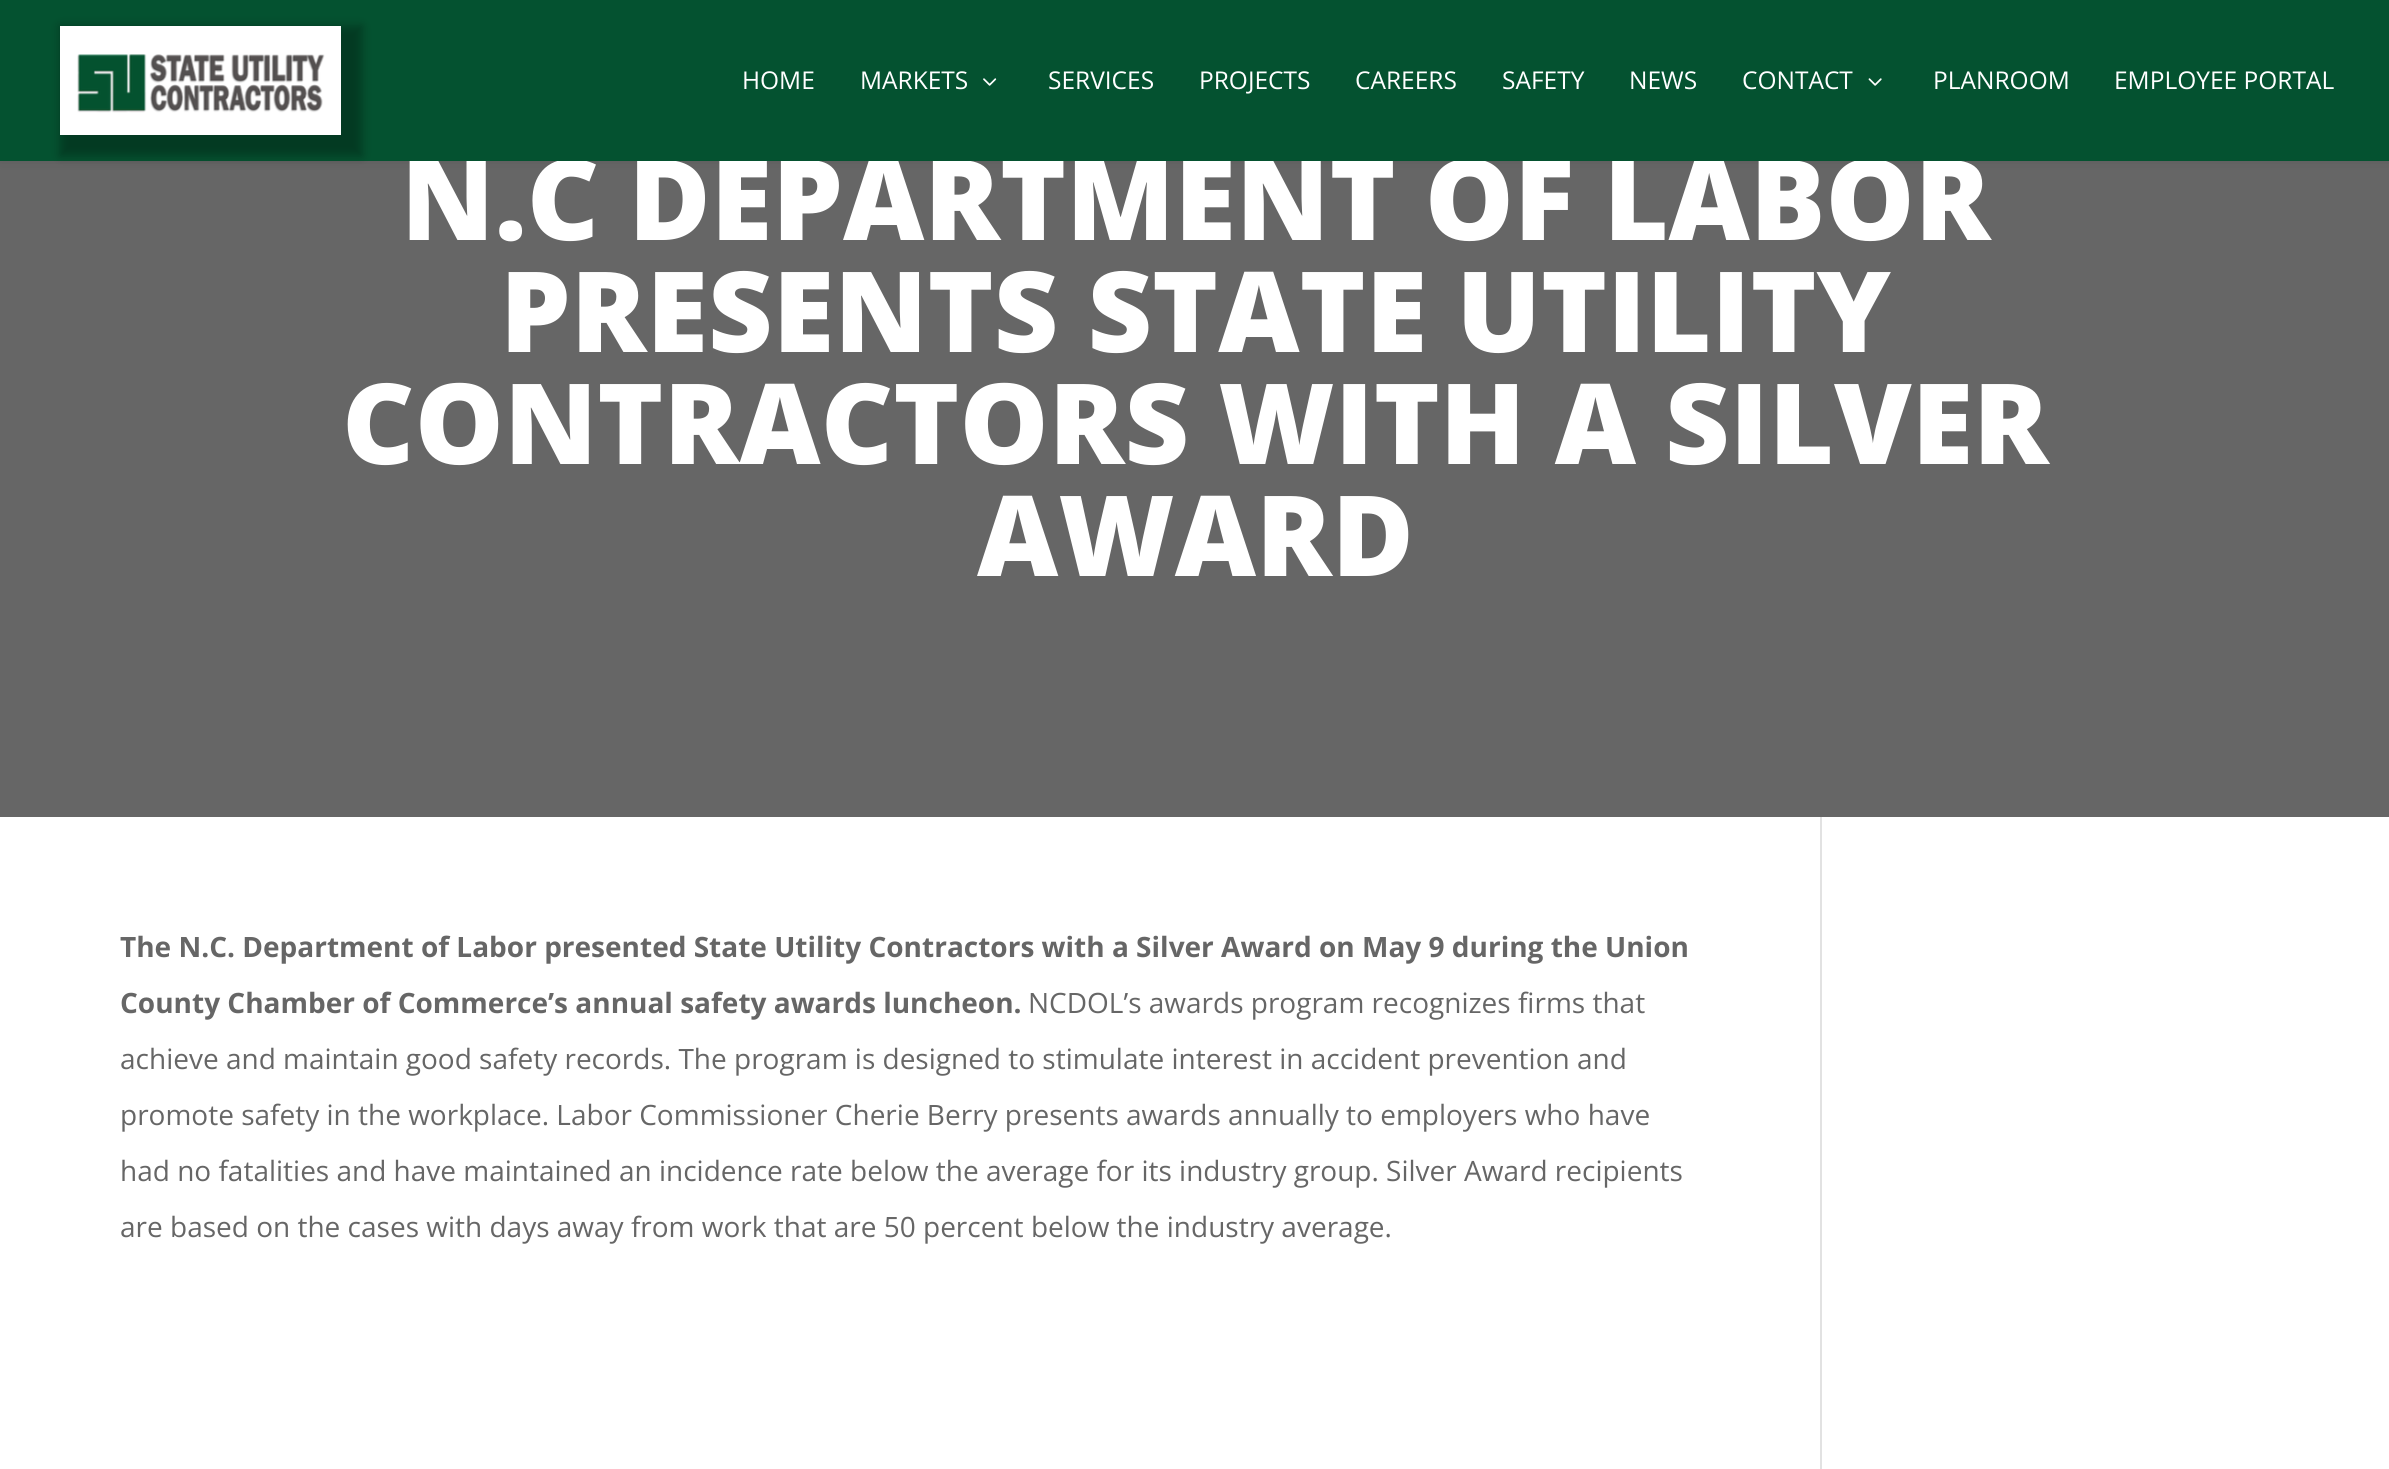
#include <cairo.h>
#include <math.h>
#include <stddef.h>


static void round_rect(cairo_t *cr, double x, double y, double w, double h, double r) {
    cairo_new_sub_path(cr);
    cairo_arc(cr, x + w - r, y + h - r, r, 0, M_PI / 2);
    cairo_arc(cr, x + r, y + h - r, r, M_PI / 2, M_PI);
    cairo_arc(cr, x + r, y + r, r, M_PI, 1.5 * M_PI);
    cairo_arc(cr, x + w - r, y + r, r, 1.5 * M_PI, 2 * M_PI);
    cairo_close_path(cr);
}

static void shadow(cairo_t *cr, double x, double y, double w, double h, double r, double blur, double alpha) {
    cairo_push_group_with_content(cr, CAIRO_CONTENT_ALPHA);
    cairo_set_operator(cr, CAIRO_OPERATOR_SOURCE);
    for (int i = 15; i >= -15 && fmin(w, h) + blur * i / 3 > 0; i -= 2) {
        double e = blur * i / 6;
        cairo_set_source_rgba(cr, 0, 0, 0, alpha * erfc((i - 1) / 8.5) / 2);
        round_rect(cr, x - e, y - e, w + 2 * e, h + 2 * e, fmax(0, fmin(r + e + blur * .6, fmin(w, h) / 2 + e)));
        cairo_fill(cr);
    }
    cairo_pattern_t *soft = cairo_pop_group(cr);
    cairo_mask(cr, soft);
    cairo_pattern_destroy(soft);
}

static void picture(cairo_t *cr, const char *path, double x, double y, double w, double h) {
    cairo_surface_t *image = cairo_image_surface_create_from_png(path);
    cairo_save(cr);
    cairo_set_source_surface(cr, image, x, y);
    cairo_rectangle(cr, x, y, w, h);
    cairo_fill(cr);
    cairo_restore(cr);
    cairo_surface_destroy(image);
}

int main(void) {
    cairo_surface_t *surface = cairo_image_surface_create(CAIRO_FORMAT_RGB24, 2389, 1469);
    cairo_t *cr = cairo_create(surface);
    cairo_font_options_t *options = cairo_font_options_create();
    cairo_font_options_set_hint_metrics(options, CAIRO_HINT_METRICS_OFF);
    cairo_font_options_set_hint_style(options, CAIRO_HINT_STYLE_NONE);
    cairo_set_font_options(cr, options);
    cairo_set_miter_limit(cr, 4);
    cairo_set_source_rgb(cr, 1, 1, 1);
    cairo_paint(cr);
    cairo_set_source_rgb(cr, 0.4, 0.4, 0.4);
    cairo_rectangle(cr, 0, 161, 2389, 656);
    cairo_fill(cr);
    cairo_set_source_rgb(cr, 0, 0, 0);
    shadow(cr, 0, 0, 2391, 161, 0, 6, 0.1);
    cairo_select_font_face(cr, "Open Sans ExtraBold", CAIRO_FONT_SLANT_NORMAL, CAIRO_FONT_WEIGHT_NORMAL);
    cairo_set_font_size(cr, 112);
    cairo_set_source_rgb(cr, 1, 1, 1);
    cairo_move_to(cr, 401, 240);
    cairo_show_text(cr, "N.C DEPARTMENT OF LABOR");
    cairo_set_source_rgb(cr, 0.016, 0.322, 0.188);
    cairo_rectangle(cr, 0, 0, 2389, 161);
    cairo_fill(cr);
    cairo_set_source_rgb(cr, 0, 0, 0);
    shadow(cr, 60, 26, 302, 130, 0, 5, 0.3);
    cairo_set_source_rgb(cr, 1, 1, 1);
    cairo_rectangle(cr, 60, 26, 281, 109);
    cairo_fill(cr);
    picture(cr, "img1.png", 77, 54, 248, 59);
    cairo_select_font_face(cr, "Open Sans", CAIRO_FONT_SLANT_NORMAL, CAIRO_FONT_WEIGHT_NORMAL);
    cairo_set_font_size(cr, 24.5);
    cairo_move_to(cr, 742, 89);
    cairo_show_text(cr, "HOME");
    cairo_move_to(cr, 860, 89);
    cairo_show_text(cr, "MARKETS");
    picture(cr, "img2.png", 983, 78, 14, 8);
    cairo_move_to(cr, 1048, 89);
    cairo_show_text(cr, "SERVICES");
    cairo_move_to(cr, 1199, 89);
    cairo_show_text(cr, "PROJECTS");
    cairo_move_to(cr, 1355, 89);
    cairo_show_text(cr, "CAREERS");
    cairo_move_to(cr, 1502, 89);
    cairo_show_text(cr, "SAFETY");
    cairo_move_to(cr, 1629, 89);
    cairo_show_text(cr, "NEWS");
    cairo_move_to(cr, 1742, 89);
    cairo_show_text(cr, "CONTACT");
    picture(cr, "img3.png", 1868, 78, 14, 8);
    cairo_move_to(cr, 1933, 89);
    cairo_show_text(cr, "PLANROOM");
    cairo_move_to(cr, 2114, 89);
    cairo_show_text(cr, "EMPLOYEE PORTAL");
    cairo_select_font_face(cr, "Open Sans ExtraBold", CAIRO_FONT_SLANT_NORMAL, CAIRO_FONT_WEIGHT_NORMAL);
    cairo_set_font_size(cr, 112);
    cairo_move_to(cr, 500, 352);
    cairo_show_text(cr, "PRESENTS STATE UTILITY");
    cairo_move_to(cr, 342, 464);
    cairo_show_text(cr, "CONTRACTORS WITH A SILVER");
    cairo_move_to(cr, 977, 576);
    cairo_show_text(cr, "AWARD");
    cairo_select_font_face(cr, "Open Sans", CAIRO_FONT_SLANT_NORMAL, CAIRO_FONT_WEIGHT_BOLD);
    cairo_set_font_size(cr, 28);
    cairo_set_source_rgb(cr, 0.4, 0.4, 0.4);
    cairo_move_to(cr, 120, 957);
    cairo_show_text(cr, "The N.C. Department of Labor presented State Utility Contractors with a Silver Award on May 9 during the Union");
    cairo_move_to(cr, 120, 1013);
    cairo_show_text(cr, "County Chamber of Commerce’s annual safety awards luncheon.");
    cairo_select_font_face(cr, "Open Sans", CAIRO_FONT_SLANT_NORMAL, CAIRO_FONT_WEIGHT_NORMAL);
    cairo_move_to(cr, 1028, 1013);
    cairo_show_text(cr, "NCDOL’s awards program recognizes firms that");
    cairo_move_to(cr, 120, 1069);
    cairo_show_text(cr, "achieve and maintain good safety records. The program is designed to stimulate interest in accident prevention and");
    cairo_move_to(cr, 120, 1125);
    cairo_show_text(cr, "promote safety in the workplace. Labor Commissioner Cherie Berry presents awards annually to employers who have");
    cairo_move_to(cr, 120, 1181);
    cairo_show_text(cr, "had no fatalities and have maintained an incidence rate below the average for its industry group. Silver Award recipients");
    cairo_move_to(cr, 120, 1237);
    cairo_show_text(cr, "are based on the cases with days away from work that are 50 percent below the industry average.");
    cairo_set_source_rgb(cr, 0.886, 0.886, 0.886);
    cairo_rectangle(cr, 1820, 817, 2, 652);
    cairo_fill(cr);
    cairo_surface_write_to_png(surface, "page.png");
    cairo_font_options_destroy(options);
    cairo_destroy(cr);
    cairo_surface_destroy(surface);
    return 0;
}
